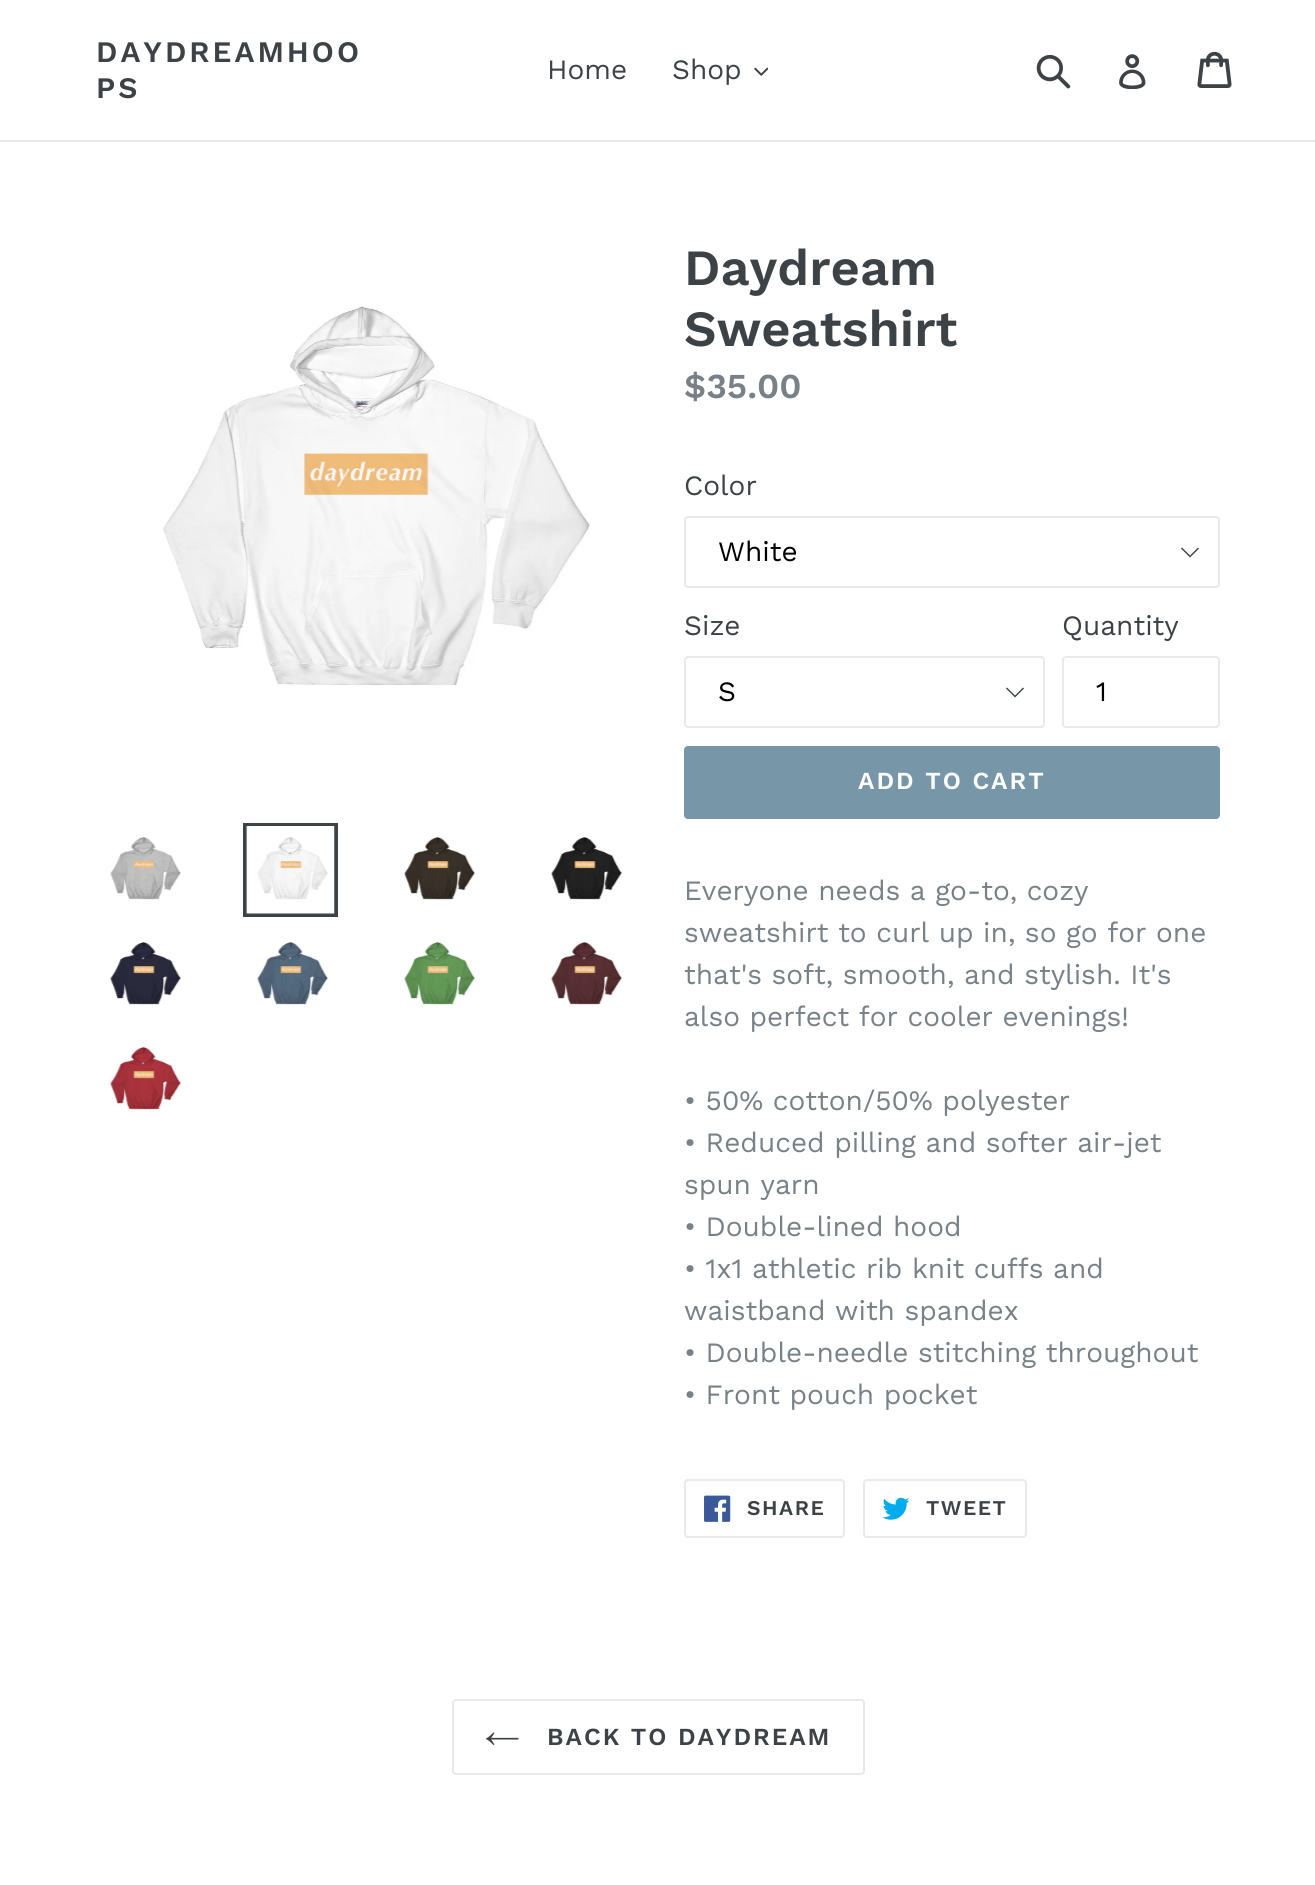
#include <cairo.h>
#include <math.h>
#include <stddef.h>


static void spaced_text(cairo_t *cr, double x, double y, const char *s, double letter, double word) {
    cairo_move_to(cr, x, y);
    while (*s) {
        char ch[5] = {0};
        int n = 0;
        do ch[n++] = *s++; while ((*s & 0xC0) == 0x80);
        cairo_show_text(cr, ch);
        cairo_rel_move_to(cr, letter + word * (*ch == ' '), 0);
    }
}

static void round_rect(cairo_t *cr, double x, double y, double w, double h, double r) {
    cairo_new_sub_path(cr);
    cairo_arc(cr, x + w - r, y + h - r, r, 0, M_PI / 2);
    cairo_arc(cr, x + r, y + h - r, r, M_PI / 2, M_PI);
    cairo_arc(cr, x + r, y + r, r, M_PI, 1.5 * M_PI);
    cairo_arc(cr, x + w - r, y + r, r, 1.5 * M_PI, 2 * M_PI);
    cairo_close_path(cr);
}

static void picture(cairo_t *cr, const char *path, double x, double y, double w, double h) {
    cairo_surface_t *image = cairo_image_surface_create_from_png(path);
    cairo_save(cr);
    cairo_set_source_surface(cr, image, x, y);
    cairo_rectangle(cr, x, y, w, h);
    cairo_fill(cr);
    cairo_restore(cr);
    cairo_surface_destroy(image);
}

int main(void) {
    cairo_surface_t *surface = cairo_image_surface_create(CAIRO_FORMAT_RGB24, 1315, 1885);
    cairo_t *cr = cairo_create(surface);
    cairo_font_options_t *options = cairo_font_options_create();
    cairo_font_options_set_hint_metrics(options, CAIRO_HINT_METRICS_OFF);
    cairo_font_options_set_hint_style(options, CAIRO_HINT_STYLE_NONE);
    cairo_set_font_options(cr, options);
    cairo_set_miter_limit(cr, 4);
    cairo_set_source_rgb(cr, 1, 1, 1);
    cairo_paint(cr);
    cairo_set_source_rgb(cr, 0.91, 0.914, 0.922);
    cairo_rectangle(cr, 0, 140, 1315, 2);
    cairo_fill(cr);
    cairo_select_font_face(cr, "Work Sans SemiBold", CAIRO_FONT_SLANT_NORMAL, CAIRO_FONT_WEIGHT_NORMAL);
    cairo_set_font_size(cr, 29.75);
    cairo_set_source_rgb(cr, 0.239, 0.259, 0.275);
    spaced_text(cr, 96, 62, "DAYDREAMHOO", 3, 0);
    spaced_text(cr, 96, 98, "PS", 3, 0);
    cairo_select_font_face(cr, "Work Sans", CAIRO_FONT_SLANT_NORMAL, CAIRO_FONT_WEIGHT_NORMAL);
    cairo_set_font_size(cr, 28);
    cairo_move_to(cr, 547, 79);
    cairo_show_text(cr, "Home");
    cairo_move_to(cr, 672, 79);
    cairo_show_text(cr, "Shop");
    picture(cr, "img1.png", 754, 67, 14, 9);
    picture(cr, "img2.png", 1036, 54, 35, 35);
    picture(cr, "img3.png", 1119, 54, 27, 35);
    picture(cr, "img4.png", 1197, 51, 35, 37);
    picture(cr, "img5.png", 163, 306, 427, 380);
    picture(cr, "img6.png", 110, 837, 71, 63);
    cairo_rectangle(cr, 245, 825, 91, 90);
    cairo_set_line_width(cr, 4);
    cairo_stroke(cr);
    picture(cr, "img7.png", 246, 826, 89, 88);
    picture(cr, "img8.png", 404, 837, 72, 63);
    picture(cr, "img9.png", 551, 837, 72, 63);
    picture(cr, "img10.png", 110, 942, 72, 63);
    picture(cr, "img11.png", 257, 942, 72, 63);
    picture(cr, "img12.png", 404, 941, 72, 64);
    picture(cr, "img13.png", 551, 942, 72, 63);
    picture(cr, "img14.png", 110, 1047, 72, 63);
    cairo_select_font_face(cr, "Work Sans SemiBold", CAIRO_FONT_SLANT_NORMAL, CAIRO_FONT_WEIGHT_NORMAL);
    cairo_set_font_size(cr, 50.75);
    cairo_move_to(cr, 684, 285);
    cairo_show_text(cr, "Daydream");
    cairo_move_to(cr, 684, 346);
    cairo_show_text(cr, "Sweatshirt");
    cairo_set_font_size(cr, 35);
    cairo_set_source_rgb(cr, 0.471, 0.506, 0.533);
    cairo_move_to(cr, 684, 398);
    cairo_show_text(cr, "$35.00");
    cairo_select_font_face(cr, "Work Sans", CAIRO_FONT_SLANT_NORMAL, CAIRO_FONT_WEIGHT_NORMAL);
    cairo_set_font_size(cr, 28);
    cairo_set_source_rgb(cr, 0.239, 0.259, 0.275);
    cairo_move_to(cr, 684, 495);
    cairo_show_text(cr, "Color");
    cairo_new_path(cr);
    cairo_move_to(cr, 1190, 557.5);
    cairo_line_to(cr, 1181, 548.5);
    cairo_line_to(cr, 1182, 547.5);
    cairo_line_to(cr, 1190, 555.5);
    cairo_line_to(cr, 1198, 547.5);
    cairo_line_to(cr, 1199, 548.5);
    cairo_close_path(cr);
    cairo_fill(cr);
    round_rect(cr, 685, 517, 534, 70, 3);
    cairo_set_source_rgb(cr, 0.91, 0.914, 0.922);
    cairo_set_line_width(cr, 2);
    cairo_stroke(cr);
    cairo_set_source_rgb(cr, 0, 0, 0);
    cairo_move_to(cr, 718, 561);
    cairo_show_text(cr, "White");
    cairo_set_source_rgb(cr, 0.239, 0.259, 0.275);
    cairo_move_to(cr, 684, 635);
    cairo_show_text(cr, "Size");
    cairo_new_path(cr);
    cairo_move_to(cr, 1015, 697.5);
    cairo_line_to(cr, 1006, 688.5);
    cairo_line_to(cr, 1007, 687.5);
    cairo_line_to(cr, 1015, 695.5);
    cairo_line_to(cr, 1023, 687.5);
    cairo_line_to(cr, 1024, 688.5);
    cairo_close_path(cr);
    cairo_fill(cr);
    round_rect(cr, 685, 657, 359, 70, 3);
    cairo_set_source_rgb(cr, 0.91, 0.914, 0.922);
    cairo_stroke(cr);
    cairo_set_source_rgb(cr, 0, 0, 0);
    cairo_move_to(cr, 718, 701);
    cairo_show_text(cr, "S");
    cairo_set_source_rgb(cr, 0.239, 0.259, 0.275);
    cairo_move_to(cr, 1062, 635);
    cairo_show_text(cr, "Quantity");
    round_rect(cr, 1063, 657, 156, 70, 3);
    cairo_set_source_rgb(cr, 0.91, 0.914, 0.922);
    cairo_stroke(cr);
    cairo_set_source_rgb(cr, 0, 0, 0);
    cairo_move_to(cr, 1096, 701);
    cairo_show_text(cr, "1");
    cairo_set_source_rgb(cr, 0.467, 0.588, 0.659);
    round_rect(cr, 684, 746, 536, 73, 4);
    cairo_fill(cr);
    cairo_select_font_face(cr, "Work Sans SemiBold", CAIRO_FONT_SLANT_NORMAL, CAIRO_FONT_WEIGHT_NORMAL);
    cairo_set_font_size(cr, 24.5);
    cairo_set_source_rgb(cr, 1, 1, 1);
    spaced_text(cr, 858, 789, "ADD TO CART", 2, 0);
    cairo_select_font_face(cr, "Work Sans", CAIRO_FONT_SLANT_NORMAL, CAIRO_FONT_WEIGHT_NORMAL);
    cairo_set_font_size(cr, 28);
    cairo_set_source_rgb(cr, 0.471, 0.506, 0.533);
    cairo_move_to(cr, 684, 900);
    cairo_show_text(cr, "Everyone needs a go-to, cozy");
    cairo_move_to(cr, 684, 942);
    cairo_show_text(cr, "sweatshirt to curl up in, so go for one");
    cairo_move_to(cr, 684, 984);
    cairo_show_text(cr, "that's soft, smooth, and stylish. It's");
    cairo_move_to(cr, 684, 1026);
    cairo_show_text(cr, "also perfect for cooler evenings!");
    cairo_move_to(cr, 684, 1110);
    cairo_show_text(cr, "• 50% cotton/50% polyester");
    cairo_move_to(cr, 684, 1152);
    cairo_show_text(cr, "• Reduced pilling and softer air-jet");
    cairo_move_to(cr, 684, 1194);
    cairo_show_text(cr, "spun yarn");
    cairo_move_to(cr, 684, 1236);
    cairo_show_text(cr, "• Double-lined hood");
    cairo_move_to(cr, 684, 1278);
    cairo_show_text(cr, "• 1x1 athletic rib knit cuffs and");
    cairo_move_to(cr, 684, 1320);
    cairo_show_text(cr, "waistband with spandex");
    cairo_move_to(cr, 684, 1362);
    cairo_show_text(cr, "• Double-needle stitching throughout");
    cairo_move_to(cr, 684, 1404);
    cairo_show_text(cr, "• Front pouch pocket");
    round_rect(cr, 685, 1480, 159, 57, 3);
    cairo_set_source_rgb(cr, 0.91, 0.914, 0.922);
    cairo_stroke(cr);
    picture(cr, "img15.png", 704, 1495, 27, 27);
    cairo_select_font_face(cr, "Work Sans SemiBold", CAIRO_FONT_SLANT_NORMAL, CAIRO_FONT_WEIGHT_NORMAL);
    cairo_set_font_size(cr, 21);
    cairo_set_source_rgb(cr, 0.239, 0.259, 0.275);
    spaced_text(cr, 747, 1515, "SHARE", 1.5, 0);
    round_rect(cr, 864, 1480, 162, 57, 3);
    cairo_set_source_rgb(cr, 0.91, 0.914, 0.922);
    cairo_stroke(cr);
    picture(cr, "img16.png", 882, 1497, 28, 23);
    cairo_set_source_rgb(cr, 0.239, 0.259, 0.275);
    spaced_text(cr, 926, 1515, "TWEET", 1.5, 0);
    round_rect(cr, 453, 1700, 411, 74, 3);
    cairo_set_source_rgb(cr, 0.91, 0.914, 0.922);
    cairo_stroke(cr);
    picture(cr, "img17.png", 486, 1732, 33, 13);
    cairo_set_font_size(cr, 24.5);
    cairo_set_source_rgb(cr, 0.239, 0.259, 0.275);
    spaced_text(cr, 547, 1745, "BACK TO DAYDREAM", 2, 0);
    cairo_surface_write_to_png(surface, "page.png");
    cairo_font_options_destroy(options);
    cairo_destroy(cr);
    cairo_surface_destroy(surface);
    return 0;
}
